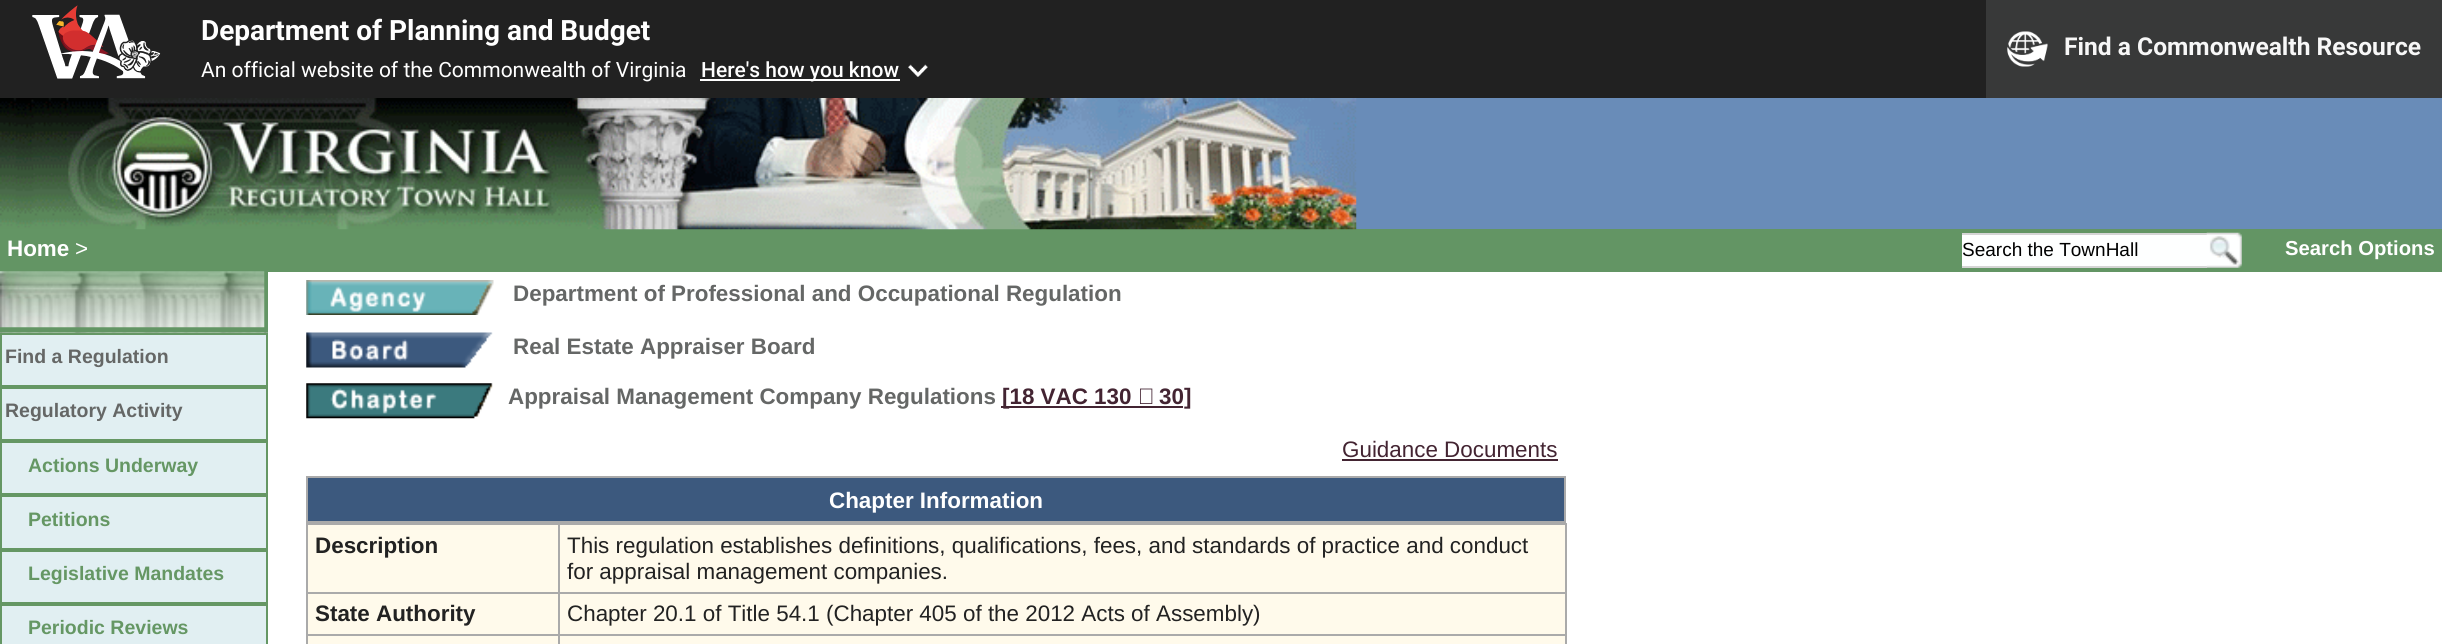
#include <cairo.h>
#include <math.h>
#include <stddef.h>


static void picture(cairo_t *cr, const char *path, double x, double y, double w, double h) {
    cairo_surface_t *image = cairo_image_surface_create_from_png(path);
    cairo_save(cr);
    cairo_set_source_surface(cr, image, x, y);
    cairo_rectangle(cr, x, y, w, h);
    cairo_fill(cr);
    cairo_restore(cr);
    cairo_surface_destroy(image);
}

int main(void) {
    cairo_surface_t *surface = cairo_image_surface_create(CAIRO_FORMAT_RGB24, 2442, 644);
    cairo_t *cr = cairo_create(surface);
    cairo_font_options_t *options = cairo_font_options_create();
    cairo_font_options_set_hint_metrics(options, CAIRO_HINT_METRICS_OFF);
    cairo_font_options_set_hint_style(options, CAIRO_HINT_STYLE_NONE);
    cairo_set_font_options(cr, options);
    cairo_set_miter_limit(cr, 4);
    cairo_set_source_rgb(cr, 1, 1, 1);
    cairo_paint(cr);
    cairo_set_source_rgb(cr, 0.129, 0.129, 0.129);
    cairo_rectangle(cr, 0, 0, 1986, 98);
    cairo_fill(cr);
    picture(cr, "img1.png", 32, 5, 129, 74);
    cairo_select_font_face(cr, "Roboto", CAIRO_FONT_SLANT_NORMAL, CAIRO_FONT_WEIGHT_BOLD);
    cairo_set_font_size(cr, 28);
    cairo_set_source_rgb(cr, 1, 1, 1);
    cairo_move_to(cr, 201, 40);
    cairo_show_text(cr, "Department of Planning and Budget");
    cairo_select_font_face(cr, "Roboto", CAIRO_FONT_SLANT_NORMAL, CAIRO_FONT_WEIGHT_NORMAL);
    cairo_set_font_size(cr, 21);
    cairo_move_to(cr, 201, 77);
    cairo_show_text(cr, "An official website of the Commonwealth of Virginia");
    cairo_rectangle(cr, 700, 79, 200, 2);
    cairo_fill(cr);
    cairo_select_font_face(cr, "Roboto Medium", CAIRO_FONT_SLANT_NORMAL, CAIRO_FONT_WEIGHT_NORMAL);
    cairo_move_to(cr, 701, 77);
    cairo_show_text(cr, "Here's how you know");
    picture(cr, "img2.png", 908, 64, 20, 13);
    cairo_set_source_rgb(cr, 0.22, 0.224, 0.224);
    cairo_rectangle(cr, 1986, 0, 456, 98);
    cairo_fill(cr);
    picture(cr, "img3.png", 2007, 31, 41, 36);
    cairo_select_font_face(cr, "Roboto", CAIRO_FONT_SLANT_NORMAL, CAIRO_FONT_WEIGHT_BOLD);
    cairo_set_font_size(cr, 24.6);
    cairo_set_source_rgb(cr, 0.965, 0.965, 0.965);
    cairo_move_to(cr, 2064, 55);
    cairo_show_text(cr, "Find a Commonwealth Resource");
    cairo_set_source_rgb(cr, 0.412, 0.549, 0.722);
    cairo_rectangle(cr, 1356, 98, 1086, 131);
    cairo_fill(cr);
    cairo_set_source_rgb(cr, 0.388, 0.584, 0.392);
    cairo_rectangle(cr, 0, 229, 2442, 43);
    cairo_fill(cr);
    picture(cr, "img4.png", 0, 98, 1357, 132);
    cairo_select_font_face(cr, "Liberation Sans", CAIRO_FONT_SLANT_NORMAL, CAIRO_FONT_WEIGHT_BOLD);
    cairo_set_font_size(cr, 22.4);
    cairo_set_source_rgb(cr, 1, 1, 1);
    cairo_move_to(cr, 7, 256);
    cairo_show_text(cr, "Home");
    cairo_select_font_face(cr, "Liberation Sans", CAIRO_FONT_SLANT_NORMAL, CAIRO_FONT_WEIGHT_NORMAL);
    cairo_move_to(cr, 75, 256);
    cairo_show_text(cr, ">");
    cairo_set_source_rgb(cr, 0.996, 1, 1);
    cairo_rectangle(cr, 1962, 235, 245, 31);
    cairo_fill(cr);
    cairo_set_source_rgb(cr, 0.835, 0.835, 0.835);
    cairo_rectangle(cr, 1962, 233, 245, 2);
    cairo_fill(cr);
    cairo_rectangle(cr, 1962, 266, 245, 2);
    cairo_fill(cr);
    cairo_set_font_size(cr, 19);
    cairo_set_source_rgb(cr, 0, 0, 0);
    cairo_move_to(cr, 1962, 256);
    cairo_show_text(cr, "Search the TownHall");
    picture(cr, "img5.png", 2206, 232, 36, 36);
    cairo_select_font_face(cr, "Liberation Sans", CAIRO_FONT_SLANT_NORMAL, CAIRO_FONT_WEIGHT_BOLD);
    cairo_set_font_size(cr, 20.25);
    cairo_set_source_rgb(cr, 1, 1, 1);
    cairo_move_to(cr, 2285, 255);
    cairo_show_text(cr, "Search Options");
    cairo_set_source_rgb(cr, 0.388, 0.584, 0.392);
    cairo_rectangle(cr, 0, 272, 268, 61);
    cairo_fill(cr);
    picture(cr, "img6.png", 0, 271, 265, 57);
    picture(cr, "img7.png", 0, 332, 268, 1);
    cairo_set_source_rgb(cr, 0.882, 0.937, 0.949);
    cairo_rectangle(cr, 1, 334, 266, 52);
    cairo_fill_preserve(cr);
    cairo_set_source_rgb(cr, 0.396, 0.592, 0.392);
    cairo_stroke(cr);
    cairo_set_font_size(cr, 19.5);
    cairo_set_source_rgb(cr, 0.396, 0.404, 0.4);
    cairo_move_to(cr, 5, 363);
    cairo_show_text(cr, "Find a Regulation");
    cairo_set_source_rgb(cr, 0.882, 0.937, 0.949);
    cairo_rectangle(cr, 1, 388, 266, 52);
    cairo_fill_preserve(cr);
    cairo_set_source_rgb(cr, 0.396, 0.592, 0.392);
    cairo_stroke(cr);
    cairo_set_source_rgb(cr, 0.396, 0.404, 0.4);
    cairo_move_to(cr, 5, 417);
    cairo_show_text(cr, "Regulatory Activity");
    cairo_set_source_rgb(cr, 0.882, 0.937, 0.949);
    cairo_rectangle(cr, 1, 442, 266, 52);
    cairo_fill_preserve(cr);
    cairo_set_source_rgb(cr, 0.396, 0.592, 0.392);
    cairo_stroke(cr);
    cairo_move_to(cr, 28, 472);
    cairo_show_text(cr, "Actions Underway");
    cairo_set_source_rgb(cr, 0.882, 0.937, 0.949);
    cairo_rectangle(cr, 1, 496, 266, 53);
    cairo_fill_preserve(cr);
    cairo_set_source_rgb(cr, 0.396, 0.592, 0.392);
    cairo_stroke(cr);
    cairo_move_to(cr, 28, 526);
    cairo_show_text(cr, "Petitions");
    cairo_set_source_rgb(cr, 0.882, 0.937, 0.949);
    cairo_rectangle(cr, 1, 551, 266, 52);
    cairo_fill_preserve(cr);
    cairo_set_source_rgb(cr, 0.396, 0.592, 0.392);
    cairo_stroke(cr);
    cairo_move_to(cr, 28, 580);
    cairo_show_text(cr, "Legislative Mandates");
    cairo_set_source_rgb(cr, 0.882, 0.937, 0.949);
    cairo_rectangle(cr, 1, 605, 266, 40);
    cairo_fill_preserve(cr);
    cairo_set_source_rgb(cr, 0.396, 0.592, 0.392);
    cairo_stroke(cr);
    cairo_move_to(cr, 28, 634);
    cairo_show_text(cr, "Periodic Reviews");
    picture(cr, "img8.png", 306, 280, 188, 35);
    cairo_set_font_size(cr, 22.4);
    cairo_set_source_rgb(cr, 0.396, 0.404, 0.4);
    cairo_move_to(cr, 513, 301);
    cairo_show_text(cr, "Department of Professional and Occupational Regulation");
    picture(cr, "img9.png", 306, 332, 187, 36);
    cairo_move_to(cr, 513, 354);
    cairo_show_text(cr, "Real Estate Appraiser Board");
    picture(cr, "img10.png", 306, 383, 187, 36);
    cairo_move_to(cr, 508, 404);
    cairo_show_text(cr, "Appraisal Management Company Regulations");
    cairo_set_source_rgb(cr, 0.263, 0.141, 0.196);
    cairo_rectangle(cr, 1001, 406, 182, 2);
    cairo_fill(cr);
    cairo_move_to(cr, 1002, 404);
    cairo_show_text(cr, "[18 VAC 130 ‑");
    cairo_move_to(cr, 1159, 404);
    cairo_show_text(cr, "30]");
    cairo_select_font_face(cr, "Liberation Sans", CAIRO_FONT_SLANT_NORMAL, CAIRO_FONT_WEIGHT_NORMAL);
    cairo_move_to(cr, 1342, 457);
    cairo_show_text(cr, "Guidance Documents");
    cairo_rectangle(cr, 1342, 459, 216, 2);
    cairo_fill(cr);
    cairo_set_source_rgb(cr, 0.235, 0.349, 0.494);
    cairo_rectangle(cr, 307, 477, 1258, 45);
    cairo_fill_preserve(cr);
    cairo_set_source_rgb(cr, 0.667, 0.667, 0.667);
    cairo_stroke(cr);
    cairo_select_font_face(cr, "Liberation Sans", CAIRO_FONT_SLANT_NORMAL, CAIRO_FONT_WEIGHT_BOLD);
    cairo_set_source_rgb(cr, 1, 1, 1);
    cairo_move_to(cr, 829, 508);
    cairo_show_text(cr, "Chapter Information");
    cairo_set_source_rgb(cr, 1, 0.98, 0.918);
    cairo_rectangle(cr, 308, 525, 1257, 119);
    cairo_fill(cr);
    cairo_set_source_rgb(cr, 0.667, 0.667, 0.667);
    cairo_rectangle(cr, 558, 523, 1008, 2);
    cairo_fill(cr);
    cairo_rectangle(cr, 558, 592, 1008, 2);
    cairo_fill(cr);
    cairo_rectangle(cr, 558, 634, 1008, 2);
    cairo_fill(cr);
    cairo_rectangle(cr, 558, 634, 2, 10);
    cairo_fill(cr);
    cairo_rectangle(cr, 306, 634, 254, 2);
    cairo_fill(cr);
    cairo_rectangle(cr, 558, 592, 2, 43);
    cairo_fill(cr);
    cairo_rectangle(cr, 306, 592, 254, 2);
    cairo_fill(cr);
    cairo_rectangle(cr, 558, 523, 2, 70);
    cairo_fill(cr);
    cairo_rectangle(cr, 306, 523, 254, 2);
    cairo_fill(cr);
    cairo_rectangle(cr, 306, 634, 2, 10);
    cairo_fill(cr);
    cairo_rectangle(cr, 306, 592, 2, 43);
    cairo_fill(cr);
    cairo_rectangle(cr, 306, 523, 2, 70);
    cairo_fill(cr);
    cairo_set_source_rgb(cr, 0.133, 0.133, 0.133);
    cairo_move_to(cr, 315, 553);
    cairo_show_text(cr, "Description");
    cairo_set_source_rgb(cr, 0.667, 0.667, 0.667);
    cairo_rectangle(cr, 1565, 634, 2, 10);
    cairo_fill(cr);
    cairo_rectangle(cr, 1565, 592, 2, 43);
    cairo_fill(cr);
    cairo_rectangle(cr, 1565, 523, 2, 70);
    cairo_fill(cr);
    cairo_select_font_face(cr, "Liberation Sans", CAIRO_FONT_SLANT_NORMAL, CAIRO_FONT_WEIGHT_NORMAL);
    cairo_set_source_rgb(cr, 0.133, 0.133, 0.133);
    cairo_move_to(cr, 567, 553);
    cairo_show_text(cr, "This regulation establishes definitions, qualifications, fees, and standards of practice and conduct");
    cairo_move_to(cr, 567, 579);
    cairo_show_text(cr, "for appraisal management companies.");
    cairo_select_font_face(cr, "Liberation Sans", CAIRO_FONT_SLANT_NORMAL, CAIRO_FONT_WEIGHT_BOLD);
    cairo_move_to(cr, 315, 621);
    cairo_show_text(cr, "State Authority");
    cairo_select_font_face(cr, "Liberation Sans", CAIRO_FONT_SLANT_NORMAL, CAIRO_FONT_WEIGHT_NORMAL);
    cairo_move_to(cr, 567, 621);
    cairo_show_text(cr, "Chapter 20.1 of Title 54.1 (Chapter 405 of the 2012 Acts of Assembly)");
    cairo_surface_write_to_png(surface, "page.png");
    cairo_font_options_destroy(options);
    cairo_destroy(cr);
    cairo_surface_destroy(surface);
    return 0;
}
